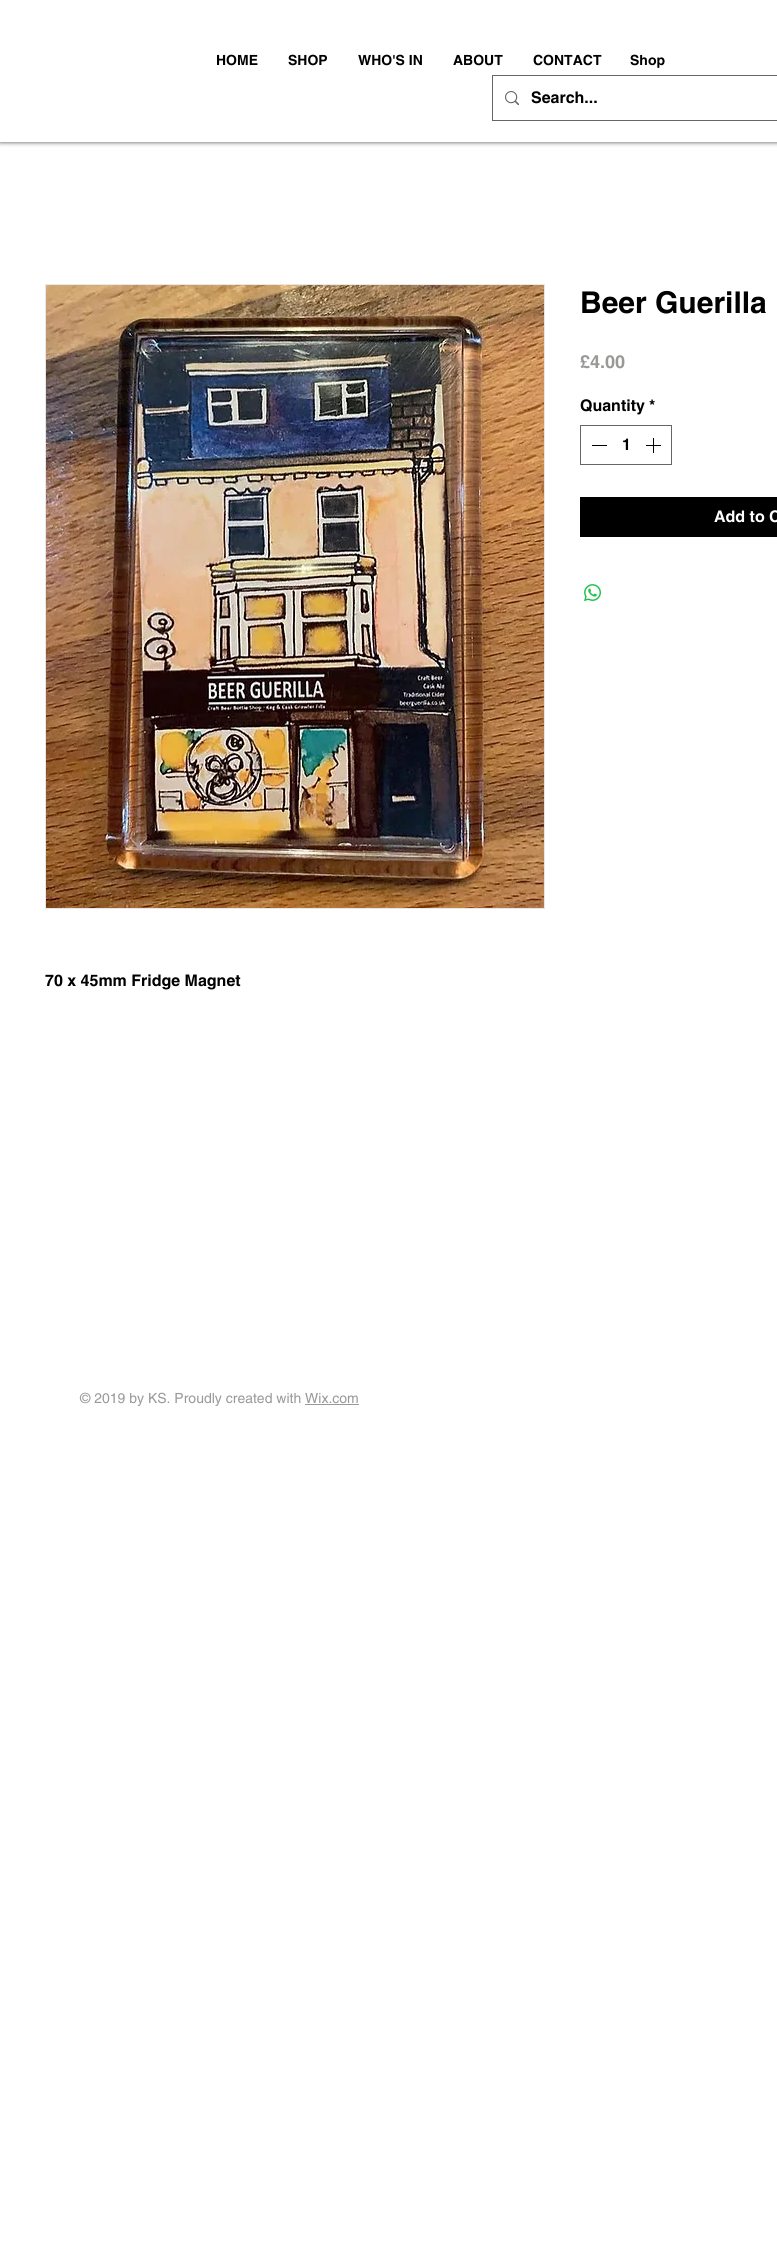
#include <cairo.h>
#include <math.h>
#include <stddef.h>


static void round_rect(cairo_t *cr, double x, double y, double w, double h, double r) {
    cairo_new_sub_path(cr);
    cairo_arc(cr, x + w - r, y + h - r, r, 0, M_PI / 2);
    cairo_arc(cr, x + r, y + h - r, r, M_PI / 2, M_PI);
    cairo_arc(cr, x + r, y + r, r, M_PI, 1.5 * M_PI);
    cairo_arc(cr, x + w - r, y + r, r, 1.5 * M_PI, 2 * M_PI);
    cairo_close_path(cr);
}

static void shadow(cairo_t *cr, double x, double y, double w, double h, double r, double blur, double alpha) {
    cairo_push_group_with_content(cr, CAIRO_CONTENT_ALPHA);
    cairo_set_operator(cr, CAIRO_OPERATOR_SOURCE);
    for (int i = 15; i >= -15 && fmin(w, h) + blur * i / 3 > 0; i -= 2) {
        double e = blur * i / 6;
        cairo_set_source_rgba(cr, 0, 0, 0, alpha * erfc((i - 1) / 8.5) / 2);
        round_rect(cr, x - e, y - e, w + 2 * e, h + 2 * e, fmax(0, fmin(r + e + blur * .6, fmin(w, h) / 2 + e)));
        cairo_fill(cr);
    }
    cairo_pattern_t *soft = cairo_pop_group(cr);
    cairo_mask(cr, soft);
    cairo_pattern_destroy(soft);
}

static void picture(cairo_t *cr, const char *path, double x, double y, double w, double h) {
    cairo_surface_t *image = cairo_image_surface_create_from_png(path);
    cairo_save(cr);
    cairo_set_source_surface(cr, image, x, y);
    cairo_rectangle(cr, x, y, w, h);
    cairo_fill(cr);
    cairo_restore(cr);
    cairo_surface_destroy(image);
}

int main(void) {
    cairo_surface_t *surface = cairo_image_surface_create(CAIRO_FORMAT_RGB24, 777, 2266);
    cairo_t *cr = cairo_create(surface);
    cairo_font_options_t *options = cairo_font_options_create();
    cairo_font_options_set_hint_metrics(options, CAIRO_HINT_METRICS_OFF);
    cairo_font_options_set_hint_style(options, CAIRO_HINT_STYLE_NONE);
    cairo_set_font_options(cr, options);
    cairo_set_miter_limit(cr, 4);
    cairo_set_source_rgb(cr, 1, 1, 1);
    cairo_paint(cr);
    cairo_save(cr);
    cairo_rectangle(cr, 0, 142, 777, 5);
    cairo_clip(cr);
    cairo_set_source_rgb(cr, 0, 0, 0);
    shadow(cr, 0, 0, 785, 142, 0, 2.5, 0.7);
    cairo_restore(cr);
    cairo_select_font_face(cr, "helvetica", CAIRO_FONT_SLANT_NORMAL, CAIRO_FONT_WEIGHT_BOLD);
    cairo_set_font_size(cr, 14);
    cairo_set_source_rgb(cr, 0, 0, 0);
    cairo_move_to(cr, 216, 65);
    cairo_show_text(cr, "HOME");
    cairo_move_to(cr, 288, 65);
    cairo_show_text(cr, "SHOP");
    cairo_move_to(cr, 358, 65);
    cairo_show_text(cr, "WHO'S IN");
    cairo_move_to(cr, 453, 65);
    cairo_show_text(cr, "ABOUT");
    cairo_move_to(cr, 533, 65);
    cairo_show_text(cr, "CONTACT");
    cairo_move_to(cr, 630, 65);
    cairo_show_text(cr, "Shop");
    cairo_rectangle(cr, 492.5, 75.5, 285, 45);
    cairo_set_source_rgb(cr, 0.4, 0.4, 0.4);
    cairo_set_line_width(cr, 1);
    cairo_stroke(cr);
    picture(cr, "img1.png", 505, 91, 14, 14);
    cairo_set_font_size(cr, 16);
    cairo_set_source_rgb(cr, 0, 0, 0);
    cairo_move_to(cr, 531, 103);
    cairo_show_text(cr, "Search...");
    cairo_set_font_size(cr, 30);
    cairo_move_to(cr, 580, 313);
    cairo_show_text(cr, "Beer Guerilla");
    cairo_set_font_size(cr, 18);
    cairo_set_source_rgb(cr, 0.6, 0.6, 0.592);
    cairo_move_to(cr, 580, 368);
    cairo_show_text(cr, "£4.00");
    cairo_set_font_size(cr, 16);
    cairo_set_source_rgb(cr, 0, 0, 0);
    cairo_move_to(cr, 580, 411);
    cairo_show_text(cr, "Quantity");
    cairo_move_to(cr, 649, 411);
    cairo_show_text(cr, "*");
    cairo_rectangle(cr, 580.5, 425.5, 91, 39);
    cairo_set_source_rgb(cr, 0.4, 0.4, 0.4);
    cairo_stroke(cr);
    cairo_set_source_rgb(cr, 0, 0, 0);
    cairo_rectangle(cr, 592, 445, 15, 1);
    cairo_fill(cr);
    cairo_move_to(cr, 622, 450);
    cairo_show_text(cr, "1");
    picture(cr, "img2.png", 646, 438, 15, 15);
    cairo_rectangle(cr, 580, 497, 197, 40);
    cairo_fill(cr);
    cairo_set_source_rgb(cr, 1, 1, 1);
    cairo_move_to(cr, 714, 522);
    cairo_show_text(cr, "Add to C");
    picture(cr, "img3.png", 584, 584, 17, 17);
    cairo_rectangle(cr, 45.5, 284.5, 499, 624);
    cairo_set_source_rgb(cr, 0.91, 0.902, 0.902);
    cairo_stroke(cr);
    picture(cr, "img4.png", 46, 285, 498, 623);
    cairo_set_source_rgb(cr, 0, 0, 0);
    cairo_move_to(cr, 45, 986);
    cairo_show_text(cr, "70 x 45mm Fridge Magnet");
    cairo_select_font_face(cr, "helvetica", CAIRO_FONT_SLANT_NORMAL, CAIRO_FONT_WEIGHT_NORMAL);
    cairo_set_font_size(cr, 14);
    cairo_set_source_rgb(cr, 0.6, 0.6, 0.592);
    cairo_move_to(cr, 80, 1403);
    cairo_show_text(cr, "© 2019 by KS. Proudly created with Wix.com");
    cairo_rectangle(cr, 305, 1404, 54, 1);
    cairo_fill(cr);
    cairo_surface_write_to_png(surface, "page.png");
    cairo_font_options_destroy(options);
    cairo_destroy(cr);
    cairo_surface_destroy(surface);
    return 0;
}
